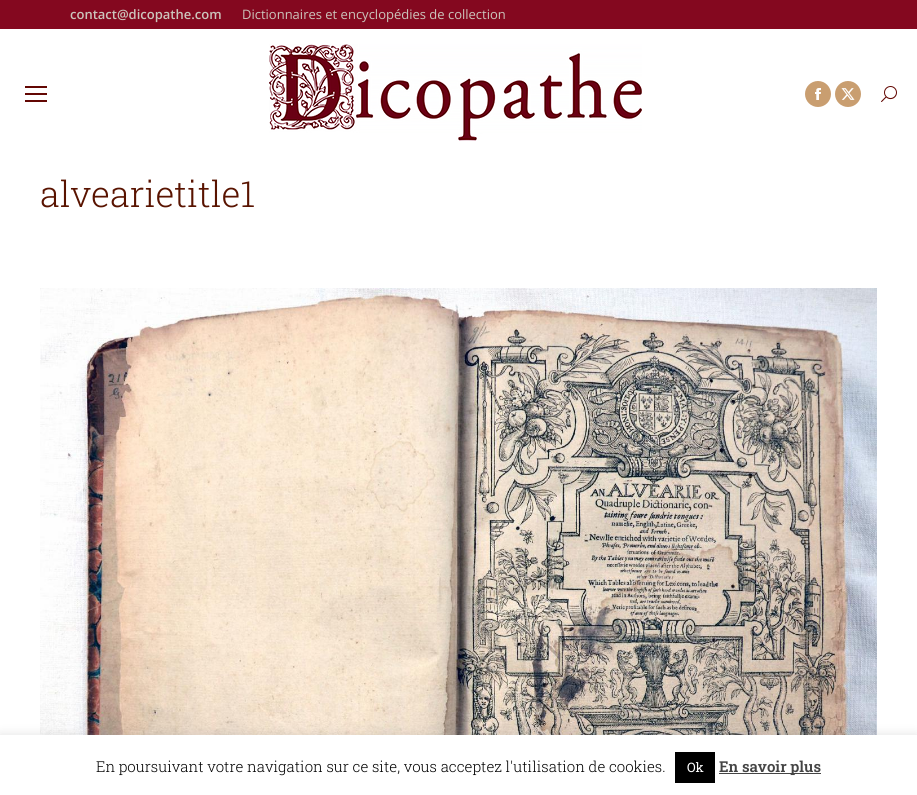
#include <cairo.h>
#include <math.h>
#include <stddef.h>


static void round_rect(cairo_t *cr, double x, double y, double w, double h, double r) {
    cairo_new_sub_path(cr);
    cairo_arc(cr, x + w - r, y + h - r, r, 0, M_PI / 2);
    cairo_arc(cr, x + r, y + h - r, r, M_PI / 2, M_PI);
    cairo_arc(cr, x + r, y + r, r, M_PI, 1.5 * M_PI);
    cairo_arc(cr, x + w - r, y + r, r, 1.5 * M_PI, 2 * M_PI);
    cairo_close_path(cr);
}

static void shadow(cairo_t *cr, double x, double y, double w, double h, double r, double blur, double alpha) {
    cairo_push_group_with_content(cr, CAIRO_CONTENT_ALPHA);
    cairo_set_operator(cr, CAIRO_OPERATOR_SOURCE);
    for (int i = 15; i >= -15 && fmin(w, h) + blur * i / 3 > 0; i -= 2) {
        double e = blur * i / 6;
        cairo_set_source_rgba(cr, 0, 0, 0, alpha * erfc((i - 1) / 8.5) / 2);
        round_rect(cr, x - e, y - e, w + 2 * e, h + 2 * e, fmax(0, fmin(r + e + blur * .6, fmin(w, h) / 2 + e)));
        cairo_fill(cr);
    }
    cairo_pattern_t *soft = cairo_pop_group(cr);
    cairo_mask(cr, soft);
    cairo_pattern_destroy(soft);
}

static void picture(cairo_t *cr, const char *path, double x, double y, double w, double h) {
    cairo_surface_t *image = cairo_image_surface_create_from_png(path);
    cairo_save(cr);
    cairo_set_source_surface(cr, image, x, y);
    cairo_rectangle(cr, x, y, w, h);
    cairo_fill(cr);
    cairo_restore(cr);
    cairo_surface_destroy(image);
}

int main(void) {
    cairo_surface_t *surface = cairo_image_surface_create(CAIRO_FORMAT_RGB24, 917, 795);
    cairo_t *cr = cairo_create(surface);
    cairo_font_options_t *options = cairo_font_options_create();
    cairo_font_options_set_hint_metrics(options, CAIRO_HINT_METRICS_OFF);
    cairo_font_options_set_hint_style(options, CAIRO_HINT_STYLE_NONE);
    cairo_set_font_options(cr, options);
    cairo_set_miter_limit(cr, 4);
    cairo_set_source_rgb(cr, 1, 1, 1);
    cairo_paint(cr);
    cairo_set_source_rgb(cr, 0.518, 0.035, 0.122);
    cairo_rectangle(cr, 0, 0, 917, 29);
    cairo_fill(cr);
    cairo_select_font_face(cr, "Open Sans SemiBold", CAIRO_FONT_SLANT_NORMAL, CAIRO_FONT_WEIGHT_NORMAL);
    cairo_set_font_size(cr, 13);
    cairo_set_source_rgb(cr, 0.8, 0.769, 0.733);
    cairo_move_to(cr, 70, 19);
    cairo_show_text(cr, "contact@dicopathe.com");
    cairo_select_font_face(cr, "Open Sans", CAIRO_FONT_SLANT_NORMAL, CAIRO_FONT_WEIGHT_NORMAL);
    cairo_move_to(cr, 242, 19);
    cairo_show_text(cr, "Dictionnaires et encyclopédies de collection");
    cairo_set_source_rgb(cr, 0.388, 0.031, 0.012);
    cairo_rectangle(cr, 25, 86, 22, 2);
    cairo_fill(cr);
    cairo_rectangle(cr, 25, 93, 22, 2);
    cairo_fill(cr);
    cairo_rectangle(cr, 25, 100, 22, 2);
    cairo_fill(cr);
    picture(cr, "img1.png", 269, 44, 373, 97);
    cairo_set_source_rgb(cr, 0.788, 0.62, 0.439);
    cairo_arc(cr, 818, 94, 13, 0, 2 * M_PI);
    cairo_fill(cr);
    picture(cr, "img2.png", 815, 88, 6, 12);
    cairo_arc(cr, 848, 94, 13, 0, 2 * M_PI);
    cairo_fill(cr);
    picture(cr, "img3.png", 841, 88, 14, 12);
    picture(cr, "img4.png", 881, 86, 16, 16);
    cairo_select_font_face(cr, "Roboto Slab Light", CAIRO_FONT_SLANT_NORMAL, CAIRO_FONT_WEIGHT_NORMAL);
    cairo_set_font_size(cr, 36);
    cairo_set_source_rgb(cr, 0.349, 0.075, 0);
    cairo_move_to(cr, 40, 207);
    cairo_show_text(cr, "alvearietitle1");
    picture(cr, "img5.png", 40, 288, 837, 447);
    cairo_set_source_rgb(cr, 0.675, 0.671, 0.671);
    shadow(cr, 0, 734, 917, 60, 0, 5, 0.3);
    cairo_set_source_rgb(cr, 1, 1, 1);
    cairo_rectangle(cr, 0, 735, 917, 60);
    cairo_fill(cr);
    cairo_set_font_size(cr, 15);
    cairo_set_source_rgb(cr, 0, 0, 0);
    cairo_move_to(cr, 96, 772);
    cairo_show_text(cr, "En poursuivant votre navigation sur ce site, vous acceptez l'utilisation de cookies.");
    cairo_rectangle(cr, 675, 752, 40, 31);
    cairo_fill(cr);
    cairo_select_font_face(cr, "Roboto Slab", CAIRO_FONT_SLANT_NORMAL, CAIRO_FONT_WEIGHT_NORMAL);
    cairo_set_font_size(cr, 13);
    cairo_set_source_rgb(cr, 1, 1, 1);
    cairo_move_to(cr, 687, 772);
    cairo_show_text(cr, "Ok");
    cairo_set_source_rgb(cr, 0.267, 0.267, 0.267);
    cairo_rectangle(cr, 719, 773, 102, 1);
    cairo_fill(cr);
    cairo_select_font_face(cr, "Roboto Slab SemiBold", CAIRO_FONT_SLANT_NORMAL, CAIRO_FONT_WEIGHT_NORMAL);
    cairo_set_font_size(cr, 15);
    cairo_move_to(cr, 719, 772);
    cairo_show_text(cr, "En savoir plus");
    cairo_surface_write_to_png(surface, "page.png");
    cairo_font_options_destroy(options);
    cairo_destroy(cr);
    cairo_surface_destroy(surface);
    return 0;
}
